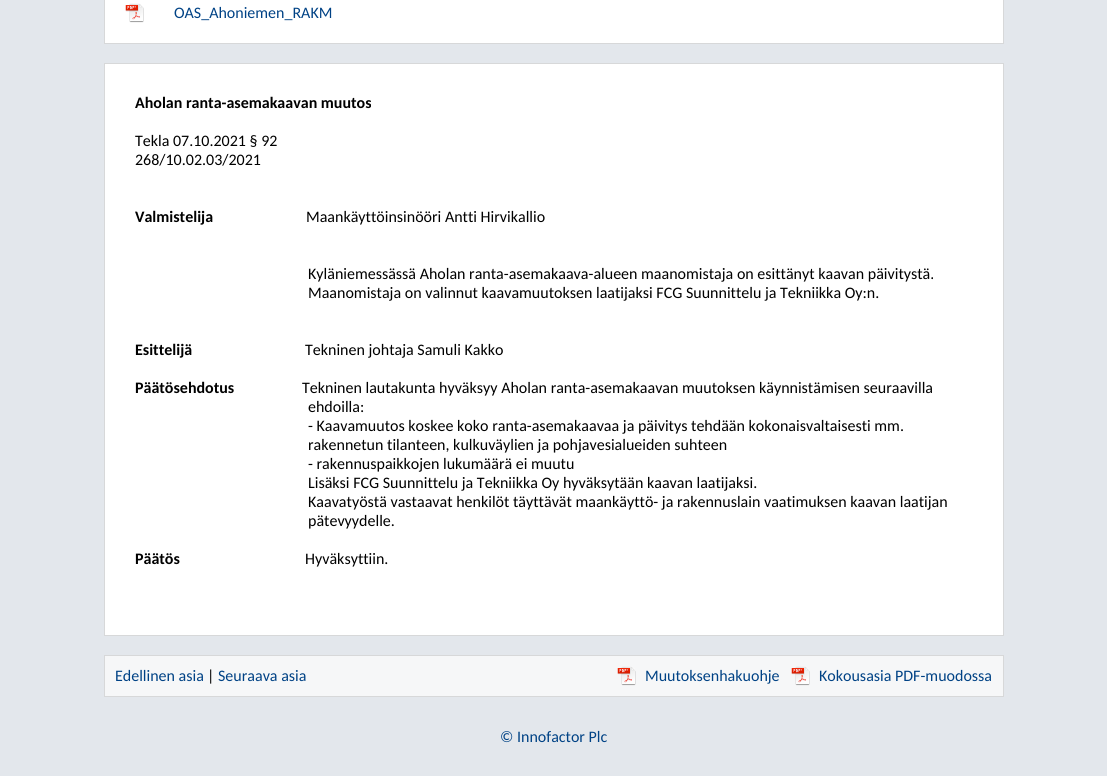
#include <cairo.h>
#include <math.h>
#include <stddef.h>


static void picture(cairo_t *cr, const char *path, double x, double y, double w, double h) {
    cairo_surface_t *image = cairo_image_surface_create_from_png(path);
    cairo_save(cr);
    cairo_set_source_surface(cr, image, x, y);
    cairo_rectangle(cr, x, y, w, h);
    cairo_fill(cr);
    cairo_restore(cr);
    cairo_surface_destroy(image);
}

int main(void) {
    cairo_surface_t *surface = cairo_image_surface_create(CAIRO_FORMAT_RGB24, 1107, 776);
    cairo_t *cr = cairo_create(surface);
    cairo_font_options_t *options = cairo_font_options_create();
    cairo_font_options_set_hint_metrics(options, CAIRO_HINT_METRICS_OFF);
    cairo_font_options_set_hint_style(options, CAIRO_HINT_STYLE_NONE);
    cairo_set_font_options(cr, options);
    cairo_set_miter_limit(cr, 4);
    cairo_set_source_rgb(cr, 0.89, 0.906, 0.922);
    cairo_paint(cr);
    cairo_set_source_rgb(cr, 1, 1, 1);
    cairo_rectangle(cr, 104.5, -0.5, 899, 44);
    cairo_fill_preserve(cr);
    cairo_set_source_rgb(cr, 0.843, 0.847, 0.851);
    cairo_set_line_width(cr, 1);
    cairo_stroke(cr);
    picture(cr, "img1.png", 125, 3, 19, 20);
    cairo_select_font_face(cr, "Carlito", CAIRO_FONT_SLANT_NORMAL, CAIRO_FONT_WEIGHT_NORMAL);
    cairo_set_font_size(cr, 16);
    cairo_set_source_rgb(cr, 0, 0.259, 0.522);
    cairo_move_to(cr, 174, 18);
    cairo_show_text(cr, "OAS_Ahoniemen_RAKM");
    cairo_set_source_rgb(cr, 1, 1, 1);
    cairo_rectangle(cr, 104.5, 63.5, 899, 572);
    cairo_fill_preserve(cr);
    cairo_set_source_rgb(cr, 0.843, 0.847, 0.851);
    cairo_stroke(cr);
    cairo_select_font_face(cr, "Carlito", CAIRO_FONT_SLANT_NORMAL, CAIRO_FONT_WEIGHT_BOLD);
    cairo_set_source_rgb(cr, 0, 0, 0);
    cairo_move_to(cr, 135, 108);
    cairo_show_text(cr, "Aholan ranta-asemakaavan muutos");
    cairo_select_font_face(cr, "Carlito", CAIRO_FONT_SLANT_NORMAL, CAIRO_FONT_WEIGHT_NORMAL);
    cairo_move_to(cr, 135, 146);
    cairo_show_text(cr, "Tekla 07.10.2021 § 92");
    cairo_move_to(cr, 135, 165);
    cairo_show_text(cr, "268/10.02.03/2021");
    cairo_select_font_face(cr, "Carlito", CAIRO_FONT_SLANT_NORMAL, CAIRO_FONT_WEIGHT_BOLD);
    cairo_move_to(cr, 135, 222);
    cairo_show_text(cr, "Valmistelija");
    cairo_select_font_face(cr, "Carlito", CAIRO_FONT_SLANT_NORMAL, CAIRO_FONT_WEIGHT_NORMAL);
    cairo_move_to(cr, 306, 222);
    cairo_show_text(cr, "Maankäyttöinsinööri Antti Hirvikallio");
    cairo_move_to(cr, 308, 279);
    cairo_show_text(cr, "Kyläniemessässä Aholan ranta-asemakaava-alueen maanomistaja on esittänyt kaavan päivitystä.");
    cairo_move_to(cr, 308, 298);
    cairo_show_text(cr, "Maanomistaja on valinnut kaavamuutoksen laatijaksi FCG Suunnittelu ja Tekniikka Oy:n.");
    cairo_select_font_face(cr, "Carlito", CAIRO_FONT_SLANT_NORMAL, CAIRO_FONT_WEIGHT_BOLD);
    cairo_move_to(cr, 135, 355);
    cairo_show_text(cr, "Esittelijä");
    cairo_select_font_face(cr, "Carlito", CAIRO_FONT_SLANT_NORMAL, CAIRO_FONT_WEIGHT_NORMAL);
    cairo_move_to(cr, 305, 355);
    cairo_show_text(cr, "Tekninen johtaja Samuli Kakko");
    cairo_select_font_face(cr, "Carlito", CAIRO_FONT_SLANT_NORMAL, CAIRO_FONT_WEIGHT_BOLD);
    cairo_move_to(cr, 135, 393);
    cairo_show_text(cr, "Päätösehdotus");
    cairo_select_font_face(cr, "Carlito", CAIRO_FONT_SLANT_NORMAL, CAIRO_FONT_WEIGHT_NORMAL);
    cairo_move_to(cr, 302, 393);
    cairo_show_text(cr, "Tekninen lautakunta hyväksyy Aholan ranta-asemakaavan muutoksen käynnistämisen seuraavilla");
    cairo_move_to(cr, 308, 412);
    cairo_show_text(cr, "ehdoilla:");
    cairo_move_to(cr, 308, 431);
    cairo_show_text(cr, "- Kaavamuutos koskee koko ranta-asemakaavaa ja päivitys tehdään kokonaisvaltaisesti mm.");
    cairo_move_to(cr, 308, 450);
    cairo_show_text(cr, "rakennetun tilanteen, kulkuväylien ja pohjavesialueiden suhteen");
    cairo_move_to(cr, 308, 469);
    cairo_show_text(cr, "- rakennuspaikkojen lukumäärä ei muutu");
    cairo_move_to(cr, 308, 488);
    cairo_show_text(cr, "Lisäksi FCG Suunnittelu ja Tekniikka Oy hyväksytään kaavan laatijaksi.");
    cairo_move_to(cr, 308, 507);
    cairo_show_text(cr, "Kaavatyöstä vastaavat henkilöt täyttävät maankäyttö- ja rakennuslain vaatimuksen kaavan laatijan");
    cairo_move_to(cr, 308, 526);
    cairo_show_text(cr, "pätevyydelle.");
    cairo_select_font_face(cr, "Carlito", CAIRO_FONT_SLANT_NORMAL, CAIRO_FONT_WEIGHT_BOLD);
    cairo_move_to(cr, 135, 564);
    cairo_show_text(cr, "Päätös");
    cairo_select_font_face(cr, "Carlito", CAIRO_FONT_SLANT_NORMAL, CAIRO_FONT_WEIGHT_NORMAL);
    cairo_move_to(cr, 305, 564);
    cairo_show_text(cr, "Hyväksyttiin.");
    cairo_rectangle(cr, 104.5, 655.5, 899, 41);
    cairo_set_source_rgb(cr, 0.843, 0.847, 0.851);
    cairo_stroke(cr);
    cairo_set_source_rgb(cr, 0.961, 0.965, 0.969);
    cairo_rectangle(cr, 105, 656, 898, 40);
    cairo_fill(cr);
    cairo_set_source_rgb(cr, 0, 0.259, 0.522);
    cairo_move_to(cr, 115, 681);
    cairo_show_text(cr, "Edellinen asia");
    cairo_set_source_rgb(cr, 0, 0, 0);
    cairo_move_to(cr, 207, 681);
    cairo_show_text(cr, "|");
    cairo_set_source_rgb(cr, 0, 0.259, 0.522);
    cairo_move_to(cr, 218, 681);
    cairo_show_text(cr, "Seuraava asia");
    picture(cr, "img2.png", 617, 666, 19, 20);
    cairo_move_to(cr, 645, 681);
    cairo_show_text(cr, "Muutoksenhakuohje");
    picture(cr, "img2.png", 791, 666, 19, 20);
    cairo_move_to(cr, 819, 681);
    cairo_show_text(cr, "Kokousasia PDF-muodossa");
    cairo_move_to(cr, 500, 742);
    cairo_show_text(cr, "© Innofactor Plc");
    cairo_surface_write_to_png(surface, "page.png");
    cairo_font_options_destroy(options);
    cairo_destroy(cr);
    cairo_surface_destroy(surface);
    return 0;
}
